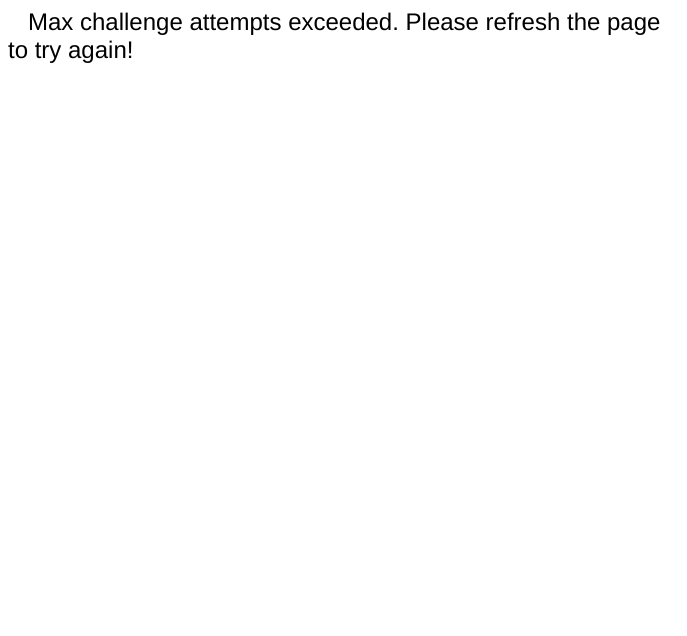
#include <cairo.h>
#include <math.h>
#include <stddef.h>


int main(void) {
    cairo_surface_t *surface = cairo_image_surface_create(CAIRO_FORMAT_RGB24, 687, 636);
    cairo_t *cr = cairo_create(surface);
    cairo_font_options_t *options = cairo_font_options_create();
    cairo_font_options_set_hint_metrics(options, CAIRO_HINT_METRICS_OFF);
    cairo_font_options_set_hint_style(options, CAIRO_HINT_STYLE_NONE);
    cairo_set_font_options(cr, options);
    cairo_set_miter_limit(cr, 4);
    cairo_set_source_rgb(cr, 1, 1, 1);
    cairo_paint(cr);
    cairo_select_font_face(cr, "Liberation Sans", CAIRO_FONT_SLANT_NORMAL, CAIRO_FONT_WEIGHT_NORMAL);
    cairo_set_font_size(cr, 24);
    cairo_set_source_rgb(cr, 0, 0, 0);
    cairo_move_to(cr, 28, 30);
    cairo_show_text(cr, "Max challenge attempts exceeded. Please refresh the page");
    cairo_move_to(cr, 8, 58);
    cairo_show_text(cr, "to try again!");
    cairo_surface_write_to_png(surface, "page.png");
    cairo_font_options_destroy(options);
    cairo_destroy(cr);
    cairo_surface_destroy(surface);
    return 0;
}
